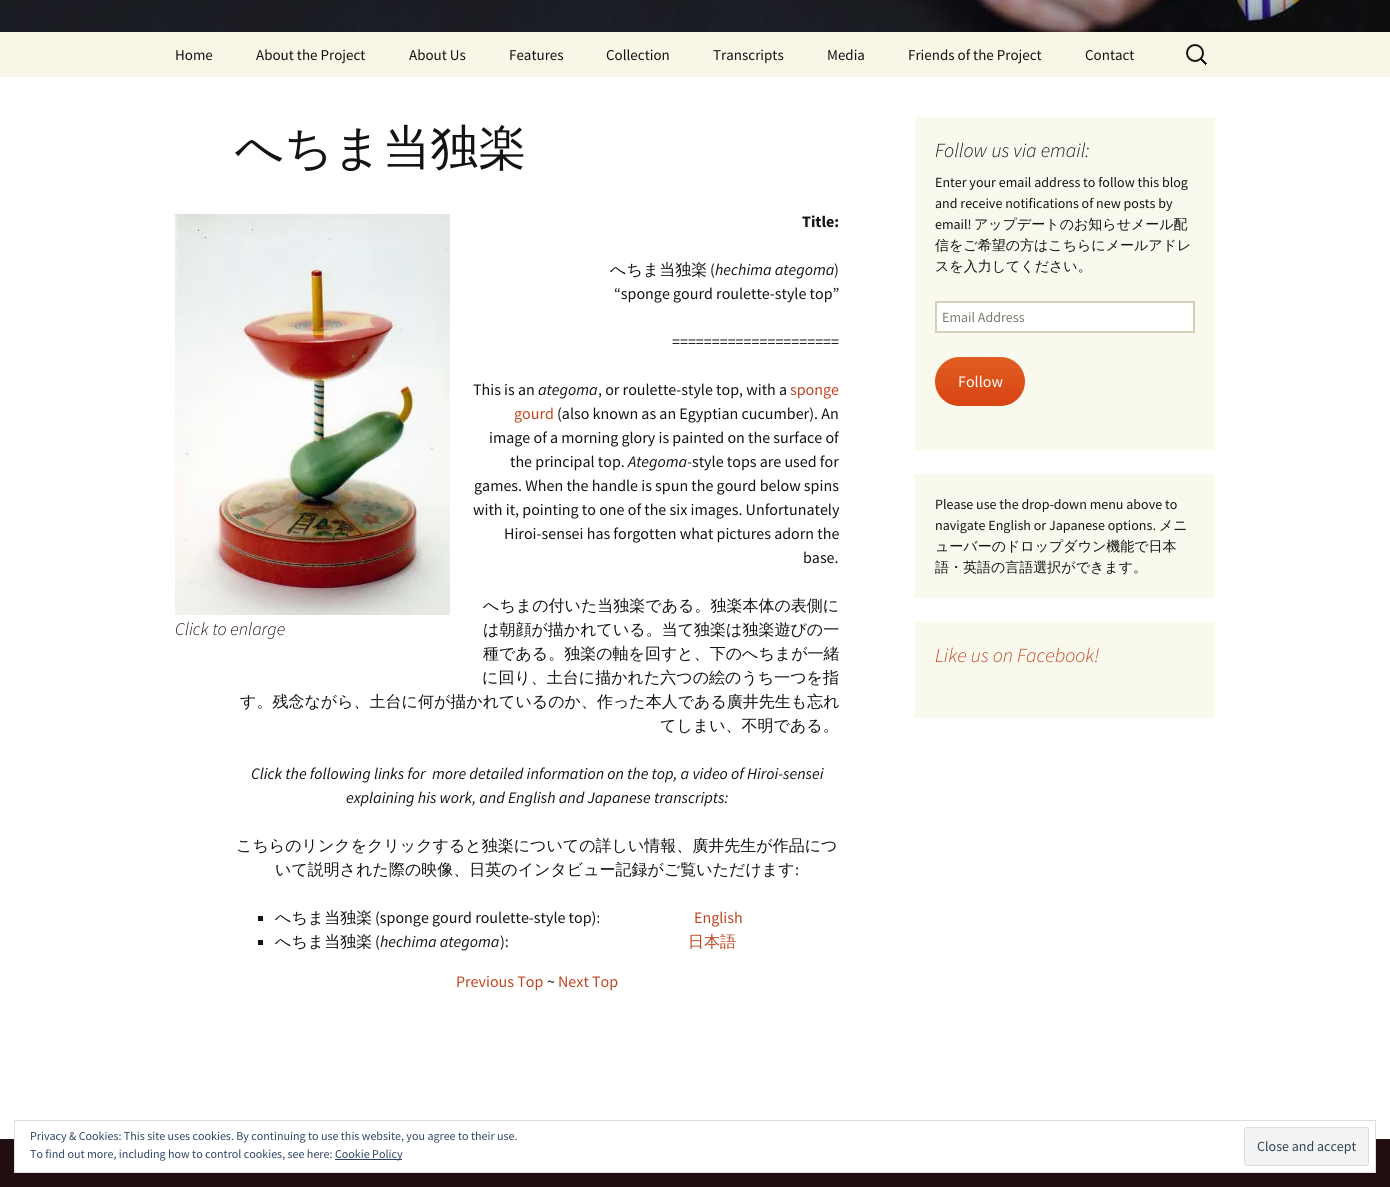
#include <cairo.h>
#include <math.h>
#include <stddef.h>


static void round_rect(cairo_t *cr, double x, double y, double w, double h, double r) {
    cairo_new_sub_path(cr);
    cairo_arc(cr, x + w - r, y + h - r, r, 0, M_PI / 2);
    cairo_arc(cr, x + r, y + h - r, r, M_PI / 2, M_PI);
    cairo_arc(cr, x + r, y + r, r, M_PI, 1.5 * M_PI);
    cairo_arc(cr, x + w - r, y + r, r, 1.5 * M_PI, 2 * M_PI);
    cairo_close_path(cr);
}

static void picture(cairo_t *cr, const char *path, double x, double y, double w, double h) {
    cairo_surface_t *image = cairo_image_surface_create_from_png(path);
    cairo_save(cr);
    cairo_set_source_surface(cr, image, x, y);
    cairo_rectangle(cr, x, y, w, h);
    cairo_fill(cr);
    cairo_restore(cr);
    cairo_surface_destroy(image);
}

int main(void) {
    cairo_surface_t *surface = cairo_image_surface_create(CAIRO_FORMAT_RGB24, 1390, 1187);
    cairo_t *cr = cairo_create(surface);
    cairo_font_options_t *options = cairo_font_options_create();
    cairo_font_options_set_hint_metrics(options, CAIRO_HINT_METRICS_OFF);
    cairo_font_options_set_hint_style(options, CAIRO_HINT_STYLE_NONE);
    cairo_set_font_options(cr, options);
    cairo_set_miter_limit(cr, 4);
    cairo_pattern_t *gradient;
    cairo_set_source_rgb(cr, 1, 1, 1);
    cairo_paint(cr);
    picture(cr, "img1.png", 0, 0, 1390, 32);
    cairo_set_source_rgb(cr, 0.969, 0.961, 0.906);
    cairo_rectangle(cr, 0, 32, 1390, 45);
    cairo_fill(cr);
    cairo_select_font_face(cr, "Source Sans Pro", CAIRO_FONT_SLANT_NORMAL, CAIRO_FONT_WEIGHT_NORMAL);
    cairo_set_font_size(cr, 15);
    cairo_set_source_rgb(cr, 0.078, 0.078, 0.078);
    cairo_move_to(cr, 175, 60);
    cairo_show_text(cr, "Home");
    cairo_move_to(cr, 256, 60);
    cairo_show_text(cr, "About the Project");
    cairo_move_to(cr, 409, 60);
    cairo_show_text(cr, "About Us");
    cairo_move_to(cr, 509, 60);
    cairo_show_text(cr, "Features");
    cairo_move_to(cr, 606, 60);
    cairo_show_text(cr, "Collection");
    cairo_move_to(cr, 713, 60);
    cairo_show_text(cr, "Transcripts");
    cairo_move_to(cr, 827, 60);
    cairo_show_text(cr, "Media");
    cairo_move_to(cr, 908, 60);
    cairo_show_text(cr, "Friends of the Project");
    cairo_move_to(cr, 1085, 60);
    cairo_show_text(cr, "Contact");
    picture(cr, "img2.png", 1186, 44, 21, 21);
    cairo_select_font_face(cr, "WenQuanYi Zen Hei Medium", CAIRO_FONT_SLANT_NORMAL, CAIRO_FONT_WEIGHT_NORMAL);
    cairo_set_font_size(cr, 48);
    cairo_move_to(cr, 235, 164);
    cairo_show_text(cr, "へちま当独楽");
    cairo_select_font_face(cr, "Source Sans Pro", CAIRO_FONT_SLANT_NORMAL, CAIRO_FONT_WEIGHT_BOLD);
    cairo_set_font_size(cr, 16);
    cairo_move_to(cr, 802, 227);
    cairo_show_text(cr, "Title:");
    cairo_select_font_face(cr, "WenQuanYi Zen Hei Medium", CAIRO_FONT_SLANT_NORMAL, CAIRO_FONT_WEIGHT_NORMAL);
    cairo_move_to(cr, 610, 275);
    cairo_show_text(cr, "へちま当独楽");
    cairo_select_font_face(cr, "Source Sans Pro", CAIRO_FONT_SLANT_NORMAL, CAIRO_FONT_WEIGHT_NORMAL);
    cairo_move_to(cr, 710, 275);
    cairo_show_text(cr, "(");
    cairo_select_font_face(cr, "Source Sans Pro", CAIRO_FONT_SLANT_ITALIC, CAIRO_FONT_WEIGHT_NORMAL);
    cairo_move_to(cr, 715, 275);
    cairo_show_text(cr, "hechima ategoma");
    cairo_select_font_face(cr, "Source Sans Pro", CAIRO_FONT_SLANT_NORMAL, CAIRO_FONT_WEIGHT_NORMAL);
    cairo_move_to(cr, 834, 275);
    cairo_show_text(cr, ")");
    cairo_move_to(cr, 614, 299);
    cairo_show_text(cr, "“sponge gourd roulette-style top”");
    cairo_move_to(cr, 672, 347);
    cairo_show_text(cr, "=====================");
    cairo_move_to(cr, 473, 395);
    cairo_show_text(cr, "This is an");
    cairo_select_font_face(cr, "Source Sans Pro", CAIRO_FONT_SLANT_ITALIC, CAIRO_FONT_WEIGHT_NORMAL);
    cairo_move_to(cr, 538, 395);
    cairo_show_text(cr, "ategoma");
    cairo_select_font_face(cr, "Source Sans Pro", CAIRO_FONT_SLANT_NORMAL, CAIRO_FONT_WEIGHT_NORMAL);
    cairo_move_to(cr, 598, 395);
    cairo_show_text(cr, ", or roulette-style top, with a");
    cairo_set_source_rgb(cr, 0.749, 0.271, 0.125);
    cairo_move_to(cr, 790, 395);
    cairo_show_text(cr, "sponge");
    cairo_move_to(cr, 514, 419);
    cairo_show_text(cr, "gourd");
    cairo_set_source_rgb(cr, 0.078, 0.078, 0.078);
    cairo_move_to(cr, 557, 419);
    cairo_show_text(cr, "(also known as an Egyptian cucumber). An");
    cairo_move_to(cr, 489, 443);
    cairo_show_text(cr, "image of a morning glory is painted on the surface of");
    cairo_move_to(cr, 510, 467);
    cairo_show_text(cr, "the principal top.");
    cairo_select_font_face(cr, "Source Sans Pro", CAIRO_FONT_SLANT_ITALIC, CAIRO_FONT_WEIGHT_NORMAL);
    cairo_move_to(cr, 628, 467);
    cairo_show_text(cr, "Ategoma-");
    cairo_select_font_face(cr, "Source Sans Pro", CAIRO_FONT_SLANT_NORMAL, CAIRO_FONT_WEIGHT_NORMAL);
    cairo_move_to(cr, 692, 467);
    cairo_show_text(cr, "style tops are used for");
    cairo_move_to(cr, 474, 491);
    cairo_show_text(cr, "games. When the handle is spun the gourd below spins");
    cairo_move_to(cr, 473, 515);
    cairo_show_text(cr, "with it, pointing to one of the six images. Unfortunately");
    cairo_move_to(cr, 504, 539);
    cairo_show_text(cr, "Hiroi-sensei has forgotten what pictures adorn the");
    cairo_move_to(cr, 803, 563);
    cairo_show_text(cr, "base.");
    picture(cr, "img3.png", 175, 214, 275, 401);
    cairo_select_font_face(cr, "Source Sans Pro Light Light", CAIRO_FONT_SLANT_ITALIC, CAIRO_FONT_WEIGHT_NORMAL);
    cairo_set_font_size(cr, 18);
    cairo_set_source_rgb(cr, 0.133, 0.055, 0.063);
    cairo_move_to(cr, 175, 635);
    cairo_show_text(cr, "Click to enlarge");
    cairo_select_font_face(cr, "WenQuanYi Zen Hei Medium", CAIRO_FONT_SLANT_NORMAL, CAIRO_FONT_WEIGHT_NORMAL);
    cairo_set_font_size(cr, 16);
    cairo_set_source_rgb(cr, 0.078, 0.078, 0.078);
    cairo_move_to(cr, 483, 611);
    cairo_show_text(cr, "へちまの付いた当独楽である。独楽本体の表側に");
    cairo_move_to(cr, 483, 635);
    cairo_show_text(cr, "は朝顔が描かれている。当て独楽は独楽遊びの一");
    cairo_move_to(cr, 483, 659);
    cairo_show_text(cr, "種である。独楽の軸を回すと、下のへちまが一緒");
    cairo_move_to(cr, 482, 683);
    cairo_show_text(cr, "に回り、土台に描かれた六つの絵のうち一つを指");
    cairo_move_to(cr, 240, 707);
    cairo_show_text(cr, "す。残念ながら、土台に何が描かれているのか、作った本人である廣井先生も忘れ");
    cairo_move_to(cr, 660, 731);
    cairo_show_text(cr, "てしまい、不明である。");
    cairo_select_font_face(cr, "Source Sans Pro", CAIRO_FONT_SLANT_ITALIC, CAIRO_FONT_WEIGHT_NORMAL);
    cairo_move_to(cr, 251, 779);
    cairo_show_text(cr, "Click the following links for  more detailed information on the top, a video of Hiroi-sensei");
    cairo_move_to(cr, 346, 803);
    cairo_show_text(cr, "explaining his work, and English and Japanese transcripts:");
    cairo_select_font_face(cr, "WenQuanYi Zen Hei Medium", CAIRO_FONT_SLANT_NORMAL, CAIRO_FONT_WEIGHT_NORMAL);
    cairo_move_to(cr, 236, 851);
    cairo_show_text(cr, "こちらのリンクをクリックすると独楽についての詳しい情報、廣井先生が作品につ");
    cairo_move_to(cr, 275, 875);
    cairo_show_text(cr, "いて説明された際の映像、日英のインタビュー記録がご覧いただけます");
    cairo_select_font_face(cr, "Source Sans Pro", CAIRO_FONT_SLANT_NORMAL, CAIRO_FONT_WEIGHT_NORMAL);
    cairo_move_to(cr, 795, 875);
    cairo_show_text(cr, ":");
    cairo_set_source_rgb(cr, 0.078, 0.078, 0.071);
    cairo_rectangle(cr, 258, 916, 5, 5);
    cairo_fill(cr);
    cairo_select_font_face(cr, "WenQuanYi Zen Hei Medium", CAIRO_FONT_SLANT_NORMAL, CAIRO_FONT_WEIGHT_NORMAL);
    cairo_set_source_rgb(cr, 0.078, 0.078, 0.078);
    cairo_move_to(cr, 275, 923);
    cairo_show_text(cr, "へちま当独楽");
    cairo_select_font_face(cr, "Source Sans Pro", CAIRO_FONT_SLANT_NORMAL, CAIRO_FONT_WEIGHT_NORMAL);
    cairo_move_to(cr, 375, 923);
    cairo_show_text(cr, "(sponge gourd roulette-style top):");
    cairo_set_source_rgb(cr, 0.749, 0.271, 0.125);
    cairo_move_to(cr, 694, 923);
    cairo_show_text(cr, "English");
    cairo_set_source_rgb(cr, 0.078, 0.078, 0.071);
    cairo_rectangle(cr, 258, 940, 5, 5);
    cairo_fill(cr);
    cairo_select_font_face(cr, "WenQuanYi Zen Hei Medium", CAIRO_FONT_SLANT_NORMAL, CAIRO_FONT_WEIGHT_NORMAL);
    cairo_set_source_rgb(cr, 0.078, 0.078, 0.078);
    cairo_move_to(cr, 275, 947);
    cairo_show_text(cr, "へちま当独楽");
    cairo_select_font_face(cr, "Source Sans Pro", CAIRO_FONT_SLANT_NORMAL, CAIRO_FONT_WEIGHT_NORMAL);
    cairo_move_to(cr, 375, 947);
    cairo_show_text(cr, "(");
    cairo_select_font_face(cr, "Source Sans Pro", CAIRO_FONT_SLANT_ITALIC, CAIRO_FONT_WEIGHT_NORMAL);
    cairo_move_to(cr, 380, 947);
    cairo_show_text(cr, "hechima ategoma");
    cairo_select_font_face(cr, "Source Sans Pro", CAIRO_FONT_SLANT_NORMAL, CAIRO_FONT_WEIGHT_NORMAL);
    cairo_move_to(cr, 500, 947);
    cairo_show_text(cr, "):");
    cairo_select_font_face(cr, "WenQuanYi Zen Hei Medium", CAIRO_FONT_SLANT_NORMAL, CAIRO_FONT_WEIGHT_NORMAL);
    cairo_set_source_rgb(cr, 0.749, 0.271, 0.125);
    cairo_move_to(cr, 688, 947);
    cairo_show_text(cr, "日本語");
    cairo_select_font_face(cr, "Source Sans Pro", CAIRO_FONT_SLANT_NORMAL, CAIRO_FONT_WEIGHT_NORMAL);
    cairo_move_to(cr, 456, 987);
    cairo_show_text(cr, "Previous Top");
    cairo_set_source_rgb(cr, 0.078, 0.078, 0.078);
    cairo_move_to(cr, 547, 987);
    cairo_show_text(cr, "~");
    cairo_set_source_rgb(cr, 0.749, 0.271, 0.125);
    cairo_move_to(cr, 558, 987);
    cairo_show_text(cr, "Next Top");
    cairo_set_source_rgb(cr, 0.98, 0.973, 0.933);
    cairo_rectangle(cr, 915, 117, 300, 333);
    cairo_fill(cr);
    cairo_select_font_face(cr, "Source Sans Pro Light Light", CAIRO_FONT_SLANT_ITALIC, CAIRO_FONT_WEIGHT_NORMAL);
    cairo_set_font_size(cr, 20);
    cairo_set_source_rgb(cr, 0.078, 0.078, 0.078);
    cairo_move_to(cr, 935, 157);
    cairo_show_text(cr, "Follow us via email:");
    cairo_select_font_face(cr, "Source Sans Pro", CAIRO_FONT_SLANT_NORMAL, CAIRO_FONT_WEIGHT_NORMAL);
    cairo_set_font_size(cr, 14);
    cairo_move_to(cr, 935, 187);
    cairo_show_text(cr, "Enter your email address to follow this blog");
    cairo_move_to(cr, 935, 208);
    cairo_show_text(cr, "and receive notifications of new posts by");
    cairo_move_to(cr, 935, 229);
    cairo_show_text(cr, "email!");
    cairo_select_font_face(cr, "WenQuanYi Zen Hei Medium", CAIRO_FONT_SLANT_NORMAL, CAIRO_FONT_WEIGHT_NORMAL);
    cairo_move_to(cr, 974, 229);
    cairo_show_text(cr, "アップデートのお知らせメール配");
    cairo_move_to(cr, 935, 250);
    cairo_show_text(cr, "信をご希望の方はこちらにメールアドレ");
    cairo_move_to(cr, 935, 271);
    cairo_show_text(cr, "スを入力してください。");
    cairo_set_source_rgb(cr, 1, 1, 1);
    cairo_rectangle(cr, 936, 302, 258, 30);
    cairo_fill_preserve(cr);
    cairo_set_source_rgb(cr, 0.831, 0.816, 0.729);
    cairo_stroke(cr);
    cairo_select_font_face(cr, "Source Sans Pro", CAIRO_FONT_SLANT_NORMAL, CAIRO_FONT_WEIGHT_NORMAL);
    cairo_set_source_rgb(cr, 0.49, 0.482, 0.427);
    cairo_move_to(cr, 942, 322);
    cairo_show_text(cr, "Email Address");
    gradient = cairo_pattern_create_linear(980, 357, 980, 406);
    cairo_pattern_add_color_stop_rgba(gradient, 0, 0.878, 0.365, 0.133, 1);
    cairo_pattern_add_color_stop_rgba(gradient, 1, 0.851, 0.267, 0.071, 1);
    cairo_set_source(cr, gradient);
    cairo_pattern_destroy(gradient);
    round_rect(cr, 935, 357, 90, 49, 24.5);
    cairo_fill(cr);
    cairo_set_font_size(cr, 16);
    cairo_set_source_rgb(cr, 1, 1, 1);
    cairo_move_to(cr, 958, 387);
    cairo_show_text(cr, "Follow");
    cairo_set_source_rgb(cr, 0.976, 0.973, 0.933);
    cairo_rectangle(cr, 915, 474, 300, 124);
    cairo_fill(cr);
    cairo_set_font_size(cr, 14);
    cairo_set_source_rgb(cr, 0.078, 0.078, 0.078);
    cairo_move_to(cr, 935, 509);
    cairo_show_text(cr, "Please use the drop-down menu above to");
    cairo_move_to(cr, 935, 530);
    cairo_show_text(cr, "navigate English or Japanese options.");
    cairo_select_font_face(cr, "WenQuanYi Zen Hei Medium", CAIRO_FONT_SLANT_NORMAL, CAIRO_FONT_WEIGHT_NORMAL);
    cairo_move_to(cr, 1159, 530);
    cairo_show_text(cr, "メニ");
    cairo_move_to(cr, 935, 551);
    cairo_show_text(cr, "ューバーのドロップダウン機能で日本");
    cairo_move_to(cr, 935, 572);
    cairo_show_text(cr, "語・英語の言語選択ができます。");
    cairo_set_source_rgb(cr, 0.976, 0.973, 0.933);
    cairo_rectangle(cr, 915, 622, 300, 96);
    cairo_fill(cr);
    cairo_select_font_face(cr, "Source Sans Pro Light Light", CAIRO_FONT_SLANT_ITALIC, CAIRO_FONT_WEIGHT_NORMAL);
    cairo_set_font_size(cr, 20);
    cairo_set_source_rgb(cr, 0.749, 0.271, 0.125);
    cairo_move_to(cr, 935, 662);
    cairo_show_text(cr, "Like us on Facebook!");
    cairo_set_source_rgb(cr, 0.129, 0.055, 0.063);
    cairo_rectangle(cr, 0, 1139, 1390, 48);
    cairo_fill(cr);
    cairo_set_source_rgb(cr, 1, 1, 1);
    cairo_rectangle(cr, 15, 1139, 1360, 33);
    cairo_fill(cr);
    cairo_rectangle(cr, 14.5, 1120.5, 1361, 52);
    cairo_set_source_rgb(cr, 0.871, 0.871, 0.871);
    cairo_set_line_width(cr, 1);
    cairo_stroke(cr);
    cairo_select_font_face(cr, "Source Sans Pro", CAIRO_FONT_SLANT_NORMAL, CAIRO_FONT_WEIGHT_NORMAL);
    cairo_set_font_size(cr, 12);
    cairo_set_source_rgb(cr, 0.18, 0.267, 0.404);
    cairo_move_to(cr, 30, 1140);
    cairo_show_text(cr, "Privacy & Cookies: This site uses cookies. By continuing to use this website, you agree to their use.");
    cairo_move_to(cr, 30, 1158);
    cairo_show_text(cr, "To find out more, including how to control cookies, see here:");
    cairo_rectangle(cr, 335, 1159, 67, 1);
    cairo_fill(cr);
    cairo_move_to(cr, 335, 1158);
    cairo_show_text(cr, "Cookie Policy");
    cairo_set_source_rgb(cr, 0.953, 0.953, 0.953);
    round_rect(cr, 1244.5, 1127.5, 124, 38, 2.5);
    cairo_fill_preserve(cr);
    cairo_set_source_rgb(cr, 0.871, 0.871, 0.871);
    cairo_stroke(cr);
    cairo_set_font_size(cr, 14);
    cairo_set_source_rgb(cr, 0.18, 0.267, 0.325);
    cairo_move_to(cr, 1257, 1151);
    cairo_show_text(cr, "Close and accept");
    cairo_surface_write_to_png(surface, "page.png");
    cairo_font_options_destroy(options);
    cairo_destroy(cr);
    cairo_surface_destroy(surface);
    return 0;
}
